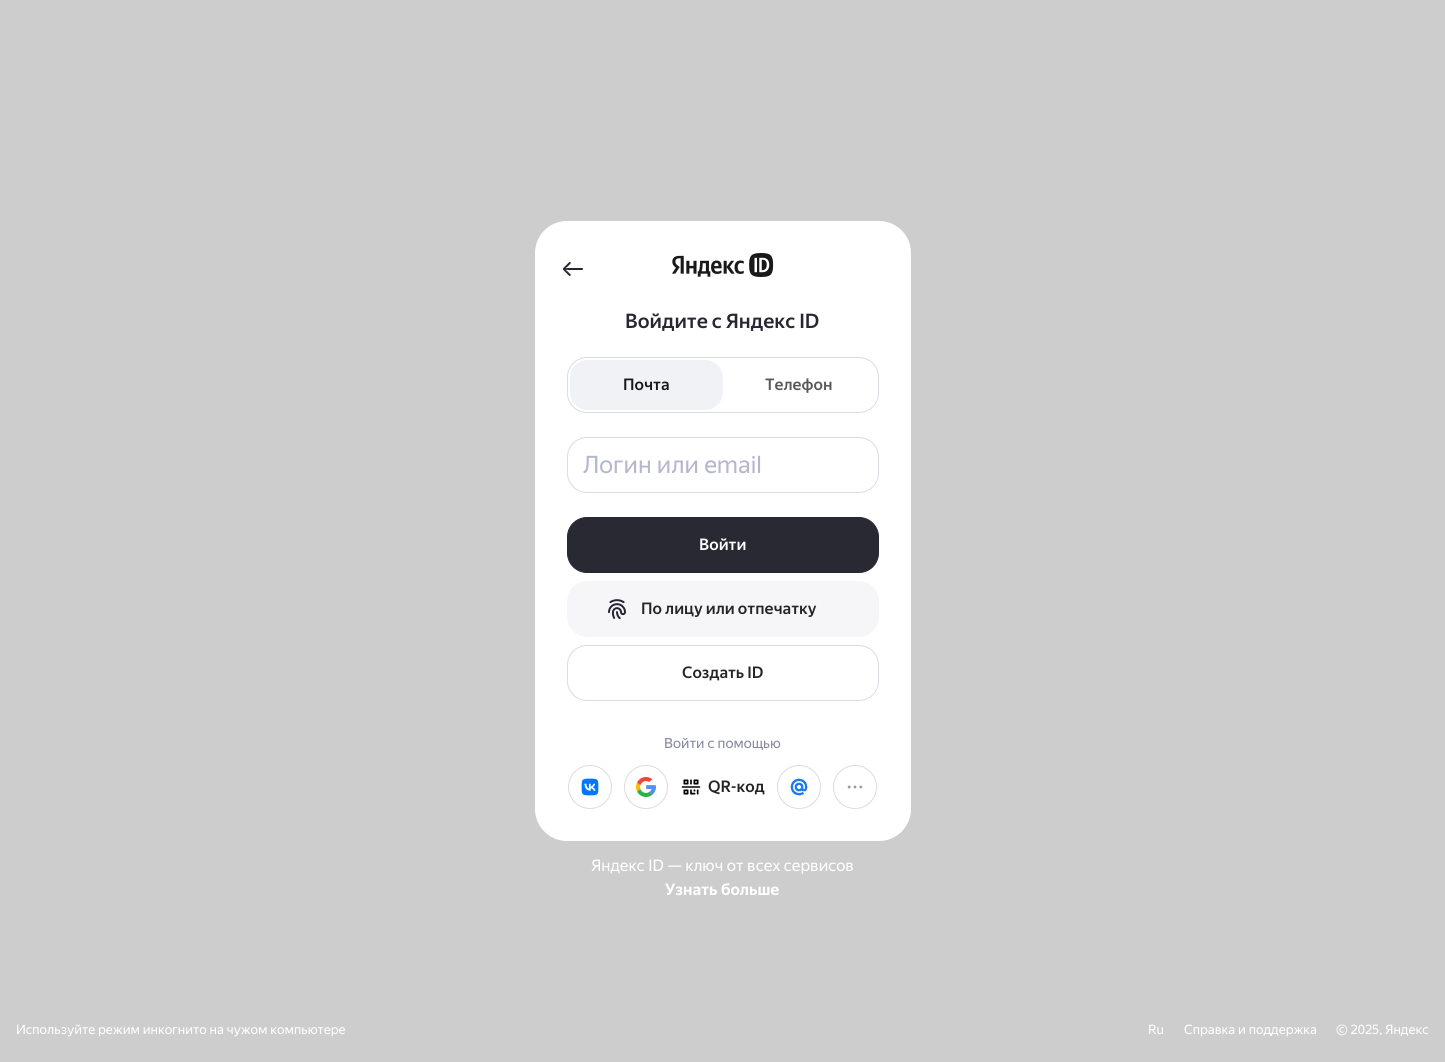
#include <cairo.h>
#include <math.h>
#include <stddef.h>


static void round_rect(cairo_t *cr, double x, double y, double w, double h, double r) {
    cairo_new_sub_path(cr);
    cairo_arc(cr, x + w - r, y + h - r, r, 0, M_PI / 2);
    cairo_arc(cr, x + r, y + h - r, r, M_PI / 2, M_PI);
    cairo_arc(cr, x + r, y + r, r, M_PI, 1.5 * M_PI);
    cairo_arc(cr, x + w - r, y + r, r, 1.5 * M_PI, 2 * M_PI);
    cairo_close_path(cr);
}

static void picture(cairo_t *cr, const char *path, double x, double y, double w, double h) {
    cairo_surface_t *image = cairo_image_surface_create_from_png(path);
    cairo_save(cr);
    cairo_set_source_surface(cr, image, x, y);
    cairo_rectangle(cr, x, y, w, h);
    cairo_fill(cr);
    cairo_restore(cr);
    cairo_surface_destroy(image);
}

int main(void) {
    cairo_surface_t *surface = cairo_image_surface_create(CAIRO_FORMAT_RGB24, 1445, 1062);
    cairo_t *cr = cairo_create(surface);
    cairo_font_options_t *options = cairo_font_options_create();
    cairo_font_options_set_hint_metrics(options, CAIRO_HINT_METRICS_OFF);
    cairo_font_options_set_hint_style(options, CAIRO_HINT_STYLE_NONE);
    cairo_set_font_options(cr, options);
    cairo_set_miter_limit(cr, 4);
    cairo_set_source_rgb(cr, 0.804, 0.804, 0.804);
    cairo_paint(cr);
    cairo_set_source_rgb(cr, 1, 1, 1);
    round_rect(cr, 535, 221, 376, 620, 32);
    cairo_fill(cr);
    picture(cr, "img1.png", 563, 262, 20, 14);
    picture(cr, "img2.png", 672, 253, 102, 24);
    cairo_select_font_face(cr, "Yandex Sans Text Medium", CAIRO_FONT_SLANT_NORMAL, CAIRO_FONT_WEIGHT_NORMAL);
    cairo_set_font_size(cr, 20);
    cairo_set_source_rgb(cr, 0.153, 0.153, 0.2);
    cairo_move_to(cr, 625, 328);
    cairo_show_text(cr, "Войдите с Яндекс ID");
    round_rect(cr, 567.5, 357.5, 311, 55, 19.5);
    cairo_set_source_rgb(cr, 0.847, 0.863, 0.902);
    cairo_set_line_width(cr, 1);
    cairo_stroke(cr);
    cairo_set_source_rgb(cr, 0.945, 0.949, 0.961);
    round_rect(cr, 570, 360, 153, 50, 18);
    cairo_fill(cr);
    cairo_set_font_size(cr, 16);
    cairo_set_source_rgb(cr, 0.094, 0.094, 0.098);
    cairo_move_to(cr, 623, 390);
    cairo_show_text(cr, "Почта");
    cairo_set_source_rgb(cr, 0.349, 0.349, 0.349);
    cairo_move_to(cr, 765, 390);
    cairo_show_text(cr, "Телефон");
    round_rect(cr, 567.5, 437.5, 311, 55, 19.5);
    cairo_set_source_rgb(cr, 0.847, 0.863, 0.902);
    cairo_stroke(cr);
    cairo_select_font_face(cr, "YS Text", CAIRO_FONT_SLANT_NORMAL, CAIRO_FONT_WEIGHT_NORMAL);
    cairo_set_font_size(cr, 24);
    cairo_set_source_rgb(cr, 0.702, 0.722, 0.8);
    cairo_move_to(cr, 583, 473);
    cairo_show_text(cr, "Логин или email");
    cairo_set_source_rgb(cr, 0.161, 0.161, 0.2);
    round_rect(cr, 567.5, 517.5, 311, 55, 19.5);
    cairo_fill_preserve(cr);
    cairo_stroke(cr);
    cairo_select_font_face(cr, "Yandex Sans Text Medium", CAIRO_FONT_SLANT_NORMAL, CAIRO_FONT_WEIGHT_NORMAL);
    cairo_set_font_size(cr, 16);
    cairo_set_source_rgb(cr, 1, 1, 1);
    cairo_move_to(cr, 699, 550);
    cairo_show_text(cr, "Войти");
    cairo_set_source_rgb(cr, 0.961, 0.961, 0.973);
    round_rect(cr, 567, 581, 312, 56, 20);
    cairo_fill(cr);
    picture(cr, "img3.png", 608, 599, 18, 21);
    cairo_set_source_rgb(cr, 0.133, 0.141, 0.149);
    cairo_move_to(cr, 641, 614);
    cairo_show_text(cr, "По лицу или отпечатку");
    round_rect(cr, 567.5, 645.5, 311, 55, 19.5);
    cairo_set_source_rgb(cr, 0.847, 0.863, 0.902);
    cairo_stroke(cr);
    cairo_set_source_rgb(cr, 0.133, 0.141, 0.149);
    cairo_move_to(cr, 682, 678);
    cairo_show_text(cr, "Создать ID");
    cairo_select_font_face(cr, "YS Text", CAIRO_FONT_SLANT_NORMAL, CAIRO_FONT_WEIGHT_NORMAL);
    cairo_set_font_size(cr, 14);
    cairo_set_source_rgb(cr, 0.522, 0.533, 0.62);
    cairo_move_to(cr, 664, 748);
    cairo_show_text(cr, "Войти с помощью");
    cairo_new_path(cr);
    cairo_arc(cr, 590, 787, 21.5, 0, 2 * M_PI);
    cairo_set_source_rgb(cr, 0.847, 0.863, 0.902);
    cairo_stroke(cr);
    picture(cr, "img4.png", 581, 778, 18, 18);
    cairo_arc(cr, 646, 787, 21.5, 0, 2 * M_PI);
    cairo_stroke(cr);
    picture(cr, "img5.png", 636, 777, 20, 20);
    picture(cr, "img6.png", 681, 779, 20, 16);
    cairo_select_font_face(cr, "Yandex Sans Text Medium", CAIRO_FONT_SLANT_NORMAL, CAIRO_FONT_WEIGHT_NORMAL);
    cairo_set_font_size(cr, 16);
    cairo_set_source_rgb(cr, 0.133, 0.141, 0.149);
    cairo_move_to(cr, 708, 792);
    cairo_show_text(cr, "QR-код");
    cairo_new_path(cr);
    cairo_arc(cr, 799, 787, 21.5, 0, 2 * M_PI);
    cairo_set_source_rgb(cr, 0.847, 0.863, 0.902);
    cairo_stroke(cr);
    picture(cr, "img7.png", 790, 778, 18, 18);
    cairo_arc(cr, 855, 787, 21.5, 0, 2 * M_PI);
    cairo_stroke(cr);
    picture(cr, "img8.png", 847, 785, 16, 4);
    cairo_select_font_face(cr, "YS Text", CAIRO_FONT_SLANT_NORMAL, CAIRO_FONT_WEIGHT_NORMAL);
    cairo_set_source_rgb(cr, 1, 1, 1);
    cairo_move_to(cr, 591, 871);
    cairo_show_text(cr, "Яндекс ID — ключ от всех сервисов");
    cairo_select_font_face(cr, "YS Text", CAIRO_FONT_SLANT_NORMAL, CAIRO_FONT_WEIGHT_BOLD);
    cairo_move_to(cr, 665, 895);
    cairo_show_text(cr, "Узнать больше");
    cairo_select_font_face(cr, "YS Text", CAIRO_FONT_SLANT_NORMAL, CAIRO_FONT_WEIGHT_NORMAL);
    cairo_set_font_size(cr, 13);
    cairo_move_to(cr, 16, 1034);
    cairo_show_text(cr, "Используйте режим инкогнито на чужом компьютере");
    cairo_move_to(cr, 1148, 1034);
    cairo_show_text(cr, "Ru");
    cairo_move_to(cr, 1184, 1034);
    cairo_show_text(cr, "Справка и поддержка");
    cairo_move_to(cr, 1336, 1034);
    cairo_show_text(cr, "© 2025,");
    cairo_move_to(cr, 1385, 1034);
    cairo_show_text(cr, "Яндекс");
    cairo_surface_write_to_png(surface, "page.png");
    cairo_font_options_destroy(options);
    cairo_destroy(cr);
    cairo_surface_destroy(surface);
    return 0;
}
